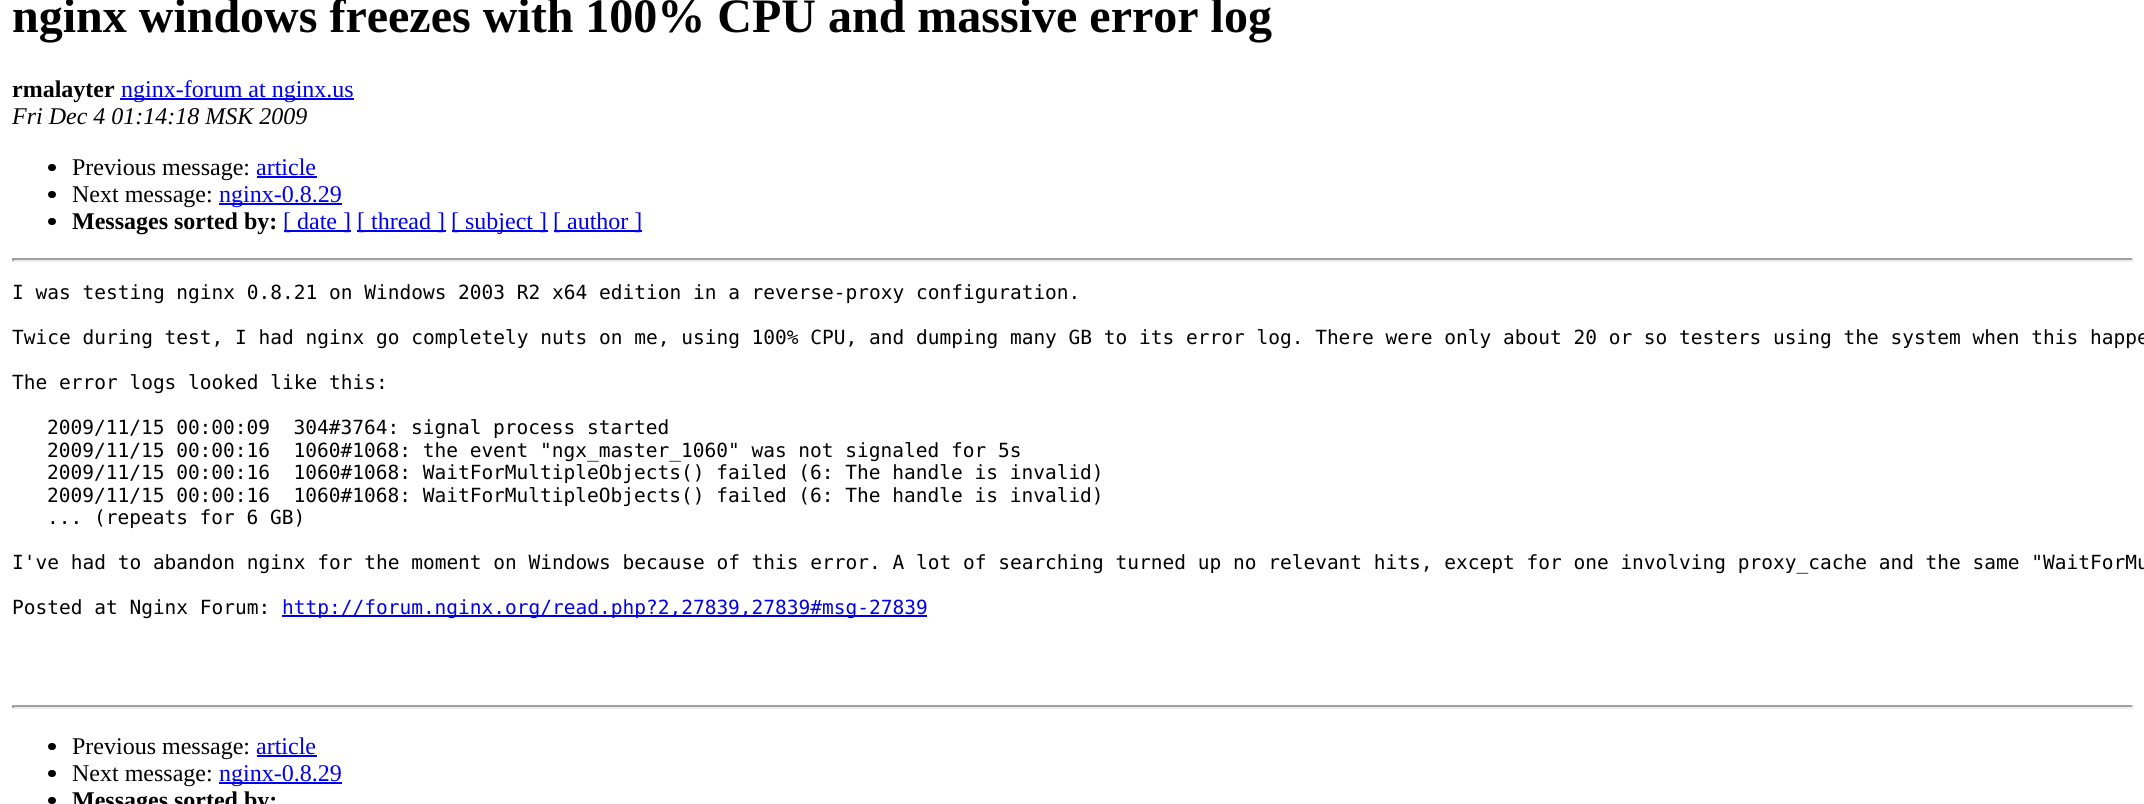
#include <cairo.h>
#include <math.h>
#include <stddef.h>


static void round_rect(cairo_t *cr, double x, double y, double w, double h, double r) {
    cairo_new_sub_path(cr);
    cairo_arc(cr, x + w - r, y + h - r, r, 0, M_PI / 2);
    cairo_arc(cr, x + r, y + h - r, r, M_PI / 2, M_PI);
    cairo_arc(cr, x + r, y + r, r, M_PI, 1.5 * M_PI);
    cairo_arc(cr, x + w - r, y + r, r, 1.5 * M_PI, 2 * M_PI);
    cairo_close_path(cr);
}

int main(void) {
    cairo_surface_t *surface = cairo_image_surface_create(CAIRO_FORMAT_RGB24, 2144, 804);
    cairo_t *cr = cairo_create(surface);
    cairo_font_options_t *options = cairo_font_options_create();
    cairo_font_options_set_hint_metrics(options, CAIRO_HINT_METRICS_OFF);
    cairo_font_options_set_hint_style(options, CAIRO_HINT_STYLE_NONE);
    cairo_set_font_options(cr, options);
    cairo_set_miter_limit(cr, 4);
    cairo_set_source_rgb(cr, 1, 1, 1);
    cairo_paint(cr);
    cairo_select_font_face(cr, "Liberation Serif", CAIRO_FONT_SLANT_NORMAL, CAIRO_FONT_WEIGHT_BOLD);
    cairo_set_font_size(cr, 48);
    cairo_set_source_rgb(cr, 0, 0, 0);
    cairo_move_to(cr, 12, 32);
    cairo_show_text(cr, "nginx windows freezes with 100% CPU and massive error log");
    cairo_set_font_size(cr, 24);
    cairo_move_to(cr, 12, 97);
    cairo_show_text(cr, "rmalayter");
    cairo_set_source_rgb(cr, 0, 0, 0.933);
    cairo_rectangle(cr, 120, 98, 234, 2);
    cairo_fill(cr);
    cairo_select_font_face(cr, "Liberation Serif", CAIRO_FONT_SLANT_NORMAL, CAIRO_FONT_WEIGHT_NORMAL);
    cairo_move_to(cr, 121, 97);
    cairo_show_text(cr, "nginx-forum at nginx.us");
    cairo_select_font_face(cr, "Liberation Serif", CAIRO_FONT_SLANT_ITALIC, CAIRO_FONT_WEIGHT_NORMAL);
    cairo_set_source_rgb(cr, 0, 0, 0);
    cairo_move_to(cr, 12, 124);
    cairo_show_text(cr, "Fri Dec 4 01:14:18 MSK 2009");
    round_rect(cr, 48, 164, 8, 7, 3.5);
    cairo_fill(cr);
    cairo_select_font_face(cr, "Liberation Serif", CAIRO_FONT_SLANT_NORMAL, CAIRO_FONT_WEIGHT_NORMAL);
    cairo_move_to(cr, 72, 175);
    cairo_show_text(cr, "Previous message:");
    cairo_set_source_rgb(cr, 0, 0, 0.933);
    cairo_move_to(cr, 256, 175);
    cairo_show_text(cr, "article");
    cairo_rectangle(cr, 257, 176, 60, 2);
    cairo_fill(cr);
    cairo_set_source_rgb(cr, 0, 0, 0);
    round_rect(cr, 48, 191, 8, 7, 3.5);
    cairo_fill(cr);
    cairo_move_to(cr, 72, 202);
    cairo_show_text(cr, "Next message:");
    cairo_set_source_rgb(cr, 0, 0, 0.933);
    cairo_rectangle(cr, 219, 203, 123, 2);
    cairo_fill(cr);
    cairo_move_to(cr, 219, 202);
    cairo_show_text(cr, "nginx-0.8.29");
    cairo_set_source_rgb(cr, 0, 0, 0);
    round_rect(cr, 48, 218, 8, 7, 3.5);
    cairo_fill(cr);
    cairo_select_font_face(cr, "Liberation Serif", CAIRO_FONT_SLANT_NORMAL, CAIRO_FONT_WEIGHT_BOLD);
    cairo_move_to(cr, 72, 229);
    cairo_show_text(cr, "Messages sorted by:");
    cairo_set_source_rgb(cr, 0, 0, 0.933);
    cairo_rectangle(cr, 284, 230, 67, 2);
    cairo_fill(cr);
    cairo_select_font_face(cr, "Liberation Serif", CAIRO_FONT_SLANT_NORMAL, CAIRO_FONT_WEIGHT_NORMAL);
    cairo_move_to(cr, 283, 229);
    cairo_show_text(cr, "[ date ]");
    cairo_rectangle(cr, 357, 230, 89, 2);
    cairo_fill(cr);
    cairo_move_to(cr, 357, 229);
    cairo_show_text(cr, "[ thread ]");
    cairo_rectangle(cr, 452, 230, 96, 2);
    cairo_fill(cr);
    cairo_move_to(cr, 451, 229);
    cairo_show_text(cr, "[ subject ]");
    cairo_rectangle(cr, 554, 230, 88, 2);
    cairo_fill(cr);
    cairo_move_to(cr, 553, 229);
    cairo_show_text(cr, "[ author ]");
    cairo_set_source_rgb(cr, 0.624, 0.624, 0.624);
    cairo_rectangle(cr, 12, 258, 2121, 2);
    cairo_fill(cr);
    cairo_set_source_rgb(cr, 0.933, 0.933, 0.933);
    cairo_rectangle(cr, 2132, 258, 2, 3);
    cairo_fill(cr);
    cairo_rectangle(cr, 12, 260, 2121, 2);
    cairo_fill(cr);
    cairo_set_source_rgb(cr, 0.624, 0.624, 0.624);
    cairo_rectangle(cr, 12, 258, 2, 3);
    cairo_fill(cr);
    cairo_select_font_face(cr, "DejaVu Sans Mono", CAIRO_FONT_SLANT_NORMAL, CAIRO_FONT_WEIGHT_NORMAL);
    cairo_set_font_size(cr, 19.5);
    cairo_set_source_rgb(cr, 0, 0, 0);
    cairo_move_to(cr, 12, 299);
    cairo_show_text(cr, "I was testing nginx 0.8.21 on Windows 2003 R2 x64 edition in a reverse-proxy configuration.");
    cairo_move_to(cr, 12, 344);
    cairo_show_text(cr, "Twice during test, I had nginx go completely nuts on me, using 100% CPU, and dumping many GB to its error log. There were only about 20 or so testers using the system when this happe");
    cairo_move_to(cr, 12, 389);
    cairo_show_text(cr, "The error logs looked like this:");
    cairo_move_to(cr, 47, 434);
    cairo_show_text(cr, "2009/11/15 00:00:09  304#3764: signal process started");
    cairo_move_to(cr, 47, 457);
    cairo_show_text(cr, "2009/11/15 00:00:16  1060#1068: the event \"ngx_master_1060\" was not signaled for 5s");
    cairo_move_to(cr, 47, 479);
    cairo_show_text(cr, "2009/11/15 00:00:16  1060#1068: WaitForMultipleObjects() failed (6: The handle is invalid)");
    cairo_move_to(cr, 47, 502);
    cairo_show_text(cr, "2009/11/15 00:00:16  1060#1068: WaitForMultipleObjects() failed (6: The handle is invalid)");
    cairo_move_to(cr, 47, 524);
    cairo_show_text(cr, "... (repeats for 6 GB)");
    cairo_move_to(cr, 12, 569);
    cairo_show_text(cr, "I've had to abandon nginx for the moment on Windows because of this error. A lot of searching turned up no relevant hits, except for one involving proxy_cache and the same \"WaitForMu");
    cairo_move_to(cr, 12, 614);
    cairo_show_text(cr, "Posted at Nginx Forum:");
    cairo_set_source_rgb(cr, 0, 0, 0.933);
    cairo_rectangle(cr, 282, 615, 645, 2);
    cairo_fill(cr);
    cairo_move_to(cr, 282, 614);
    cairo_show_text(cr, "http://forum.nginx.org/read.php?2,27839,27839#msg-27839");
    cairo_set_source_rgb(cr, 0.624, 0.624, 0.624);
    cairo_rectangle(cr, 12, 705, 2121, 2);
    cairo_fill(cr);
    cairo_set_source_rgb(cr, 0.933, 0.933, 0.933);
    cairo_rectangle(cr, 2132, 705, 2, 3);
    cairo_fill(cr);
    cairo_rectangle(cr, 12, 707, 2121, 2);
    cairo_fill(cr);
    cairo_set_source_rgb(cr, 0.624, 0.624, 0.624);
    cairo_rectangle(cr, 12, 705, 2, 3);
    cairo_fill(cr);
    cairo_set_source_rgb(cr, 0, 0, 0);
    round_rect(cr, 48, 743, 8, 7, 3.5);
    cairo_fill(cr);
    cairo_select_font_face(cr, "Liberation Serif", CAIRO_FONT_SLANT_NORMAL, CAIRO_FONT_WEIGHT_NORMAL);
    cairo_set_font_size(cr, 24);
    cairo_move_to(cr, 72, 754);
    cairo_show_text(cr, "Previous message:");
    cairo_set_source_rgb(cr, 0, 0, 0.933);
    cairo_move_to(cr, 256, 754);
    cairo_show_text(cr, "article");
    cairo_rectangle(cr, 257, 755, 60, 2);
    cairo_fill(cr);
    cairo_set_source_rgb(cr, 0, 0, 0);
    round_rect(cr, 48, 770, 8, 7, 3.5);
    cairo_fill(cr);
    cairo_move_to(cr, 72, 781);
    cairo_show_text(cr, "Next message:");
    cairo_set_source_rgb(cr, 0, 0, 0.933);
    cairo_rectangle(cr, 219, 782, 123, 2);
    cairo_fill(cr);
    cairo_move_to(cr, 219, 781);
    cairo_show_text(cr, "nginx-0.8.29");
    cairo_set_source_rgb(cr, 0, 0, 0);
    round_rect(cr, 48, 797, 8, 7, 3.5);
    cairo_fill(cr);
    cairo_select_font_face(cr, "Liberation Serif", CAIRO_FONT_SLANT_NORMAL, CAIRO_FONT_WEIGHT_BOLD);
    cairo_move_to(cr, 72, 808);
    cairo_show_text(cr, "Messages sorted by:");
    cairo_surface_write_to_png(surface, "page.png");
    cairo_font_options_destroy(options);
    cairo_destroy(cr);
    cairo_surface_destroy(surface);
    return 0;
}
